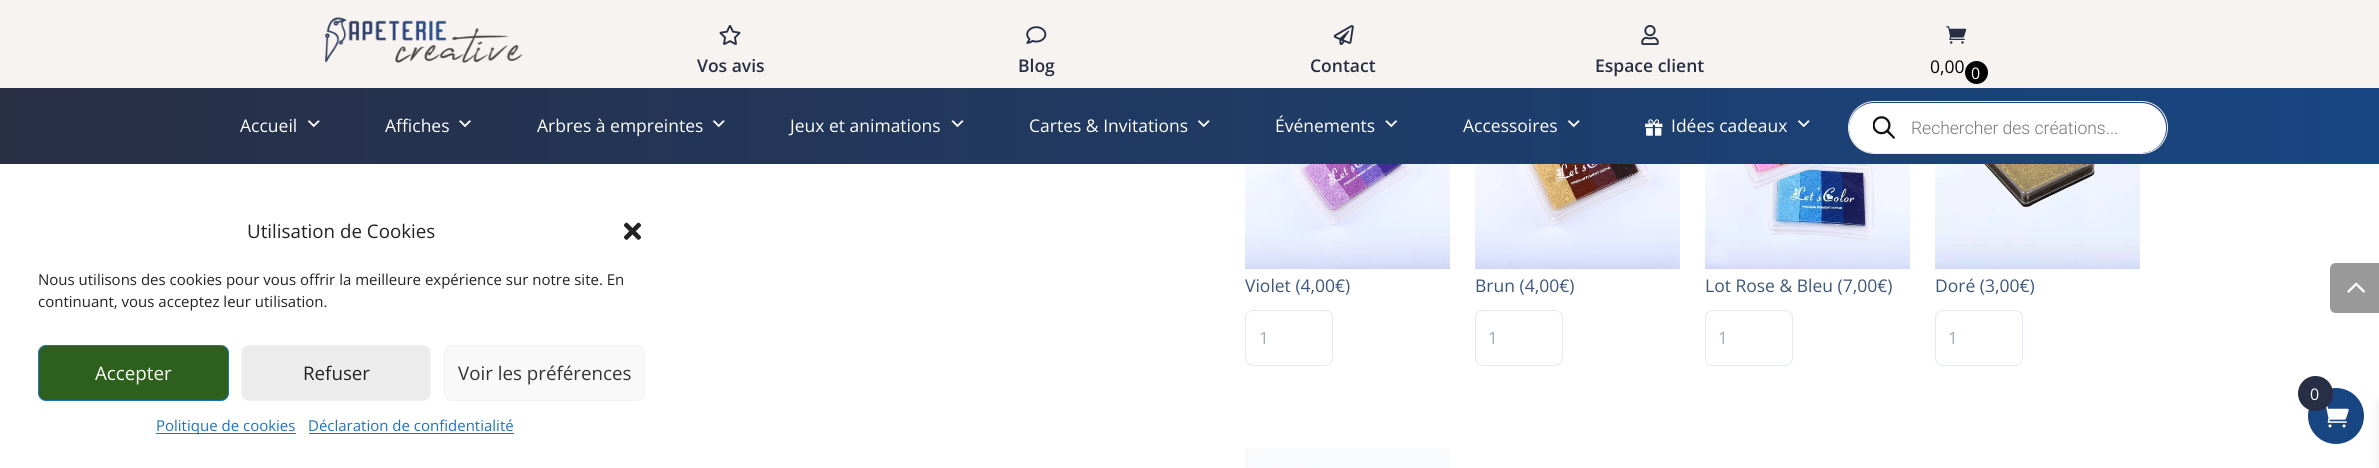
#include <cairo.h>
#include <math.h>
#include <stddef.h>


static void round_rect(cairo_t *cr, double x, double y, double w, double h, double r) {
    cairo_new_sub_path(cr);
    cairo_arc(cr, x + w - r, y + h - r, r, 0, M_PI / 2);
    cairo_arc(cr, x + r, y + h - r, r, M_PI / 2, M_PI);
    cairo_arc(cr, x + r, y + r, r, M_PI, 1.5 * M_PI);
    cairo_arc(cr, x + w - r, y + r, r, 1.5 * M_PI, 2 * M_PI);
    cairo_close_path(cr);
}

static void shadow(cairo_t *cr, double x, double y, double w, double h, double r, double blur, double alpha) {
    cairo_push_group_with_content(cr, CAIRO_CONTENT_ALPHA);
    cairo_set_operator(cr, CAIRO_OPERATOR_SOURCE);
    for (int i = 15; i >= -15 && fmin(w, h) + blur * i / 3 > 0; i -= 2) {
        double e = blur * i / 6;
        cairo_set_source_rgba(cr, 0, 0, 0, alpha * erfc((i - 1) / 8.5) / 2);
        round_rect(cr, x - e, y - e, w + 2 * e, h + 2 * e, fmax(0, fmin(r + e + blur * .6, fmin(w, h) / 2 + e)));
        cairo_fill(cr);
    }
    cairo_pattern_t *soft = cairo_pop_group(cr);
    cairo_mask(cr, soft);
    cairo_pattern_destroy(soft);
}

static void picture(cairo_t *cr, const char *path, double x, double y, double w, double h) {
    cairo_surface_t *image = cairo_image_surface_create_from_png(path);
    cairo_save(cr);
    cairo_set_source_surface(cr, image, x, y);
    cairo_rectangle(cr, x, y, w, h);
    cairo_fill(cr);
    cairo_restore(cr);
    cairo_surface_destroy(image);
}

int main(void) {
    cairo_surface_t *surface = cairo_image_surface_create(CAIRO_FORMAT_RGB24, 2379, 468);
    cairo_t *cr = cairo_create(surface);
    cairo_font_options_t *options = cairo_font_options_create();
    cairo_font_options_set_hint_metrics(options, CAIRO_HINT_METRICS_OFF);
    cairo_font_options_set_hint_style(options, CAIRO_HINT_STYLE_NONE);
    cairo_set_font_options(cr, options);
    cairo_set_miter_limit(cr, 4);
    cairo_pattern_t *gradient;
    cairo_set_source_rgb(cr, 1, 1, 1);
    cairo_paint(cr);
    cairo_set_source_rgb(cr, 0.961, 0.953, 0.945);
    cairo_rectangle(cr, 0, 0, 2379, 88);
    cairo_fill(cr);
    picture(cr, "img1.png", 325, 17, 198, 46);
    picture(cr, "img2.png", 719, 25, 22, 20);
    cairo_select_font_face(cr, "Open Sans SemiBold", CAIRO_FONT_SLANT_NORMAL, CAIRO_FONT_WEIGHT_NORMAL);
    cairo_set_font_size(cr, 17.5);
    cairo_set_source_rgb(cr, 0.157, 0.18, 0.267);
    cairo_move_to(cr, 697, 72);
    cairo_show_text(cr, "Vos avis");
    picture(cr, "img3.png", 1026, 26, 21, 18);
    cairo_move_to(cr, 1018, 72);
    cairo_show_text(cr, "Blog");
    picture(cr, "img4.png", 1333, 25, 21, 20);
    cairo_move_to(cr, 1310, 72);
    cairo_show_text(cr, "Contact");
    picture(cr, "img5.png", 1641, 25, 18, 20);
    cairo_move_to(cr, 1595, 72);
    cairo_show_text(cr, "Espace client");
    picture(cr, "img6.png", 1946, 26, 21, 18);
    cairo_select_font_face(cr, "Open Sans", CAIRO_FONT_SLANT_NORMAL, CAIRO_FONT_WEIGHT_NORMAL);
    cairo_set_source_rgb(cr, 0, 0, 0);
    cairo_move_to(cr, 1930, 73);
    cairo_show_text(cr, "0,00");
    cairo_new_path(cr);
    cairo_arc(cr, 1976.5, 72.5, 11.5, 0, 2 * M_PI);
    cairo_fill(cr);
    cairo_set_font_size(cr, 16);
    cairo_set_source_rgb(cr, 1, 1, 1);
    cairo_move_to(cr, 1971, 79);
    cairo_show_text(cr, "0");
    gradient = cairo_pattern_create_linear(0, 126, 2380, 126);
    cairo_pattern_add_color_stop_rgba(gradient, 0, 0.157, 0.18, 0.267, 1);
    cairo_pattern_add_color_stop_rgba(gradient, 1, 0.094, 0.275, 0.51, 1);
    cairo_set_source(cr, gradient);
    cairo_pattern_destroy(gradient);
    cairo_rectangle(cr, 0, 88, 2379, 76);
    cairo_fill(cr);
    cairo_set_font_size(cr, 17.5);
    cairo_set_source_rgb(cr, 1, 1, 1);
    cairo_move_to(cr, 240, 132);
    cairo_show_text(cr, "Accueil");
    picture(cr, "img7.png", 307, 120, 13, 8);
    cairo_move_to(cr, 385, 132);
    cairo_show_text(cr, "Affiches");
    picture(cr, "img8.png", 459, 120, 12, 8);
    cairo_move_to(cr, 537, 132);
    cairo_show_text(cr, "Arbres à empreintes");
    picture(cr, "img9.png", 712, 120, 13, 8);
    cairo_move_to(cr, 790, 132);
    cairo_show_text(cr, "Jeux et animations");
    picture(cr, "img10.png", 951, 120, 13, 8);
    cairo_move_to(cr, 1029, 132);
    cairo_show_text(cr, "Cartes & Invitations");
    picture(cr, "img11.png", 1197, 120, 13, 8);
    cairo_move_to(cr, 1275, 132);
    cairo_show_text(cr, "Événements");
    picture(cr, "img12.png", 1385, 120, 13, 8);
    cairo_move_to(cr, 1463, 132);
    cairo_show_text(cr, "Accessoires");
    picture(cr, "img13.png", 1567, 120, 13, 8);
    picture(cr, "img14.png", 1645, 119, 18, 17);
    cairo_move_to(cr, 1671, 132);
    cairo_show_text(cr, "Idées cadeaux");
    picture(cr, "img15.png", 1797, 120, 13, 8);
    round_rect(cr, 1848.5, 101.5, 319, 52, 26);
    cairo_set_source_rgb(cr, 0.933, 0.933, 0.933);
    cairo_set_line_width(cr, 1);
    cairo_stroke(cr);
    cairo_set_source_rgb(cr, 1, 1, 1);
    round_rect(cr, 1850.5, 104.5, 314, 47, 23.5);
    cairo_fill_preserve(cr);
    cairo_set_line_width(cr, 3);
    cairo_stroke(cr);
    picture(cr, "img16.png", 1873, 116, 22, 23);
    cairo_select_font_face(cr, "Roboto Light", CAIRO_FONT_SLANT_NORMAL, CAIRO_FONT_WEIGHT_NORMAL);
    cairo_set_source_rgb(cr, 0.467, 0.467, 0.467);
    cairo_move_to(cr, 1911, 134);
    cairo_show_text(cr, "Rechercher des créations...");
    picture(cr, "img17.png", 1245, 164, 205, 105);
    cairo_select_font_face(cr, "Open Sans", CAIRO_FONT_SLANT_NORMAL, CAIRO_FONT_WEIGHT_NORMAL);
    cairo_set_source_rgb(cr, 0.235, 0.337, 0.475);
    cairo_move_to(cr, 1245, 292);
    cairo_show_text(cr, "Violet (4,00€)");
    round_rect(cr, 1245.5, 310.5, 87, 55, 7.5);
    cairo_set_source_rgb(cr, 0.89, 0.91, 0.957);
    cairo_set_line_width(cr, 1);
    cairo_stroke(cr);
    cairo_set_font_size(cr, 17);
    cairo_set_source_rgb(cr, 0.62, 0.671, 0.737);
    cairo_move_to(cr, 1259, 344);
    cairo_show_text(cr, "1");
    picture(cr, "img18.png", 1475, 164, 205, 105);
    cairo_set_font_size(cr, 17.5);
    cairo_set_source_rgb(cr, 0.235, 0.337, 0.475);
    cairo_move_to(cr, 1475, 292);
    cairo_show_text(cr, "Brun (4,00€)");
    round_rect(cr, 1475.5, 310.5, 87, 55, 7.5);
    cairo_set_source_rgb(cr, 0.89, 0.91, 0.957);
    cairo_stroke(cr);
    cairo_set_font_size(cr, 17);
    cairo_set_source_rgb(cr, 0.62, 0.671, 0.737);
    cairo_move_to(cr, 1488, 344);
    cairo_show_text(cr, "1");
    picture(cr, "img19.png", 1705, 164, 205, 105);
    cairo_set_font_size(cr, 17.5);
    cairo_set_source_rgb(cr, 0.235, 0.337, 0.475);
    cairo_move_to(cr, 1705, 292);
    cairo_show_text(cr, "Lot Rose & Bleu (7,00€)");
    round_rect(cr, 1705.5, 310.5, 87, 55, 7.5);
    cairo_set_source_rgb(cr, 0.89, 0.91, 0.957);
    cairo_stroke(cr);
    cairo_set_font_size(cr, 17);
    cairo_set_source_rgb(cr, 0.62, 0.671, 0.737);
    cairo_move_to(cr, 1718, 344);
    cairo_show_text(cr, "1");
    picture(cr, "img20.png", 1935, 164, 205, 105);
    cairo_set_font_size(cr, 17.5);
    cairo_set_source_rgb(cr, 0.235, 0.337, 0.475);
    cairo_move_to(cr, 1935, 292);
    cairo_show_text(cr, "Doré (3,00€)");
    round_rect(cr, 1935.5, 310.5, 87, 55, 7.5);
    cairo_set_source_rgb(cr, 0.89, 0.91, 0.957);
    cairo_stroke(cr);
    cairo_set_font_size(cr, 17);
    cairo_set_source_rgb(cr, 0.62, 0.671, 0.737);
    cairo_move_to(cr, 1948, 344);
    cairo_show_text(cr, "1");
    picture(cr, "img21.png", 1245, 448, 205, 20);
    cairo_set_font_size(cr, 18.75);
    cairo_set_source_rgb(cr, 0.133, 0.133, 0.133);
    cairo_move_to(cr, 247, 238);
    cairo_show_text(cr, "Utilisation de Cookies");
    picture(cr, "img22.png", 623, 222, 19, 18);
    cairo_set_font_size(cr, 15);
    cairo_move_to(cr, 38, 285);
    cairo_show_text(cr, "Nous utilisons des cookies pour vous offrir la meilleure expérience sur notre site. En");
    cairo_move_to(cr, 38, 307);
    cairo_show_text(cr, "continuant, vous acceptez leur utilisation.");
    cairo_set_source_rgb(cr, 0.176, 0.376, 0.114);
    round_rect(cr, 38.5, 345.5, 190, 55, 7.5);
    cairo_fill_preserve(cr);
    cairo_set_source_rgb(cr, 0.118, 0.451, 0.745);
    cairo_stroke(cr);
    cairo_set_font_size(cr, 18.75);
    cairo_set_source_rgb(cr, 1, 1, 1);
    cairo_move_to(cr, 95, 380);
    cairo_show_text(cr, "Accepter");
    cairo_set_source_rgb(cr, 0.925, 0.925, 0.925);
    round_rect(cr, 241.5, 345.5, 189, 55, 7.5);
    cairo_fill_preserve(cr);
    cairo_set_source_rgb(cr, 0.949, 0.949, 0.949);
    cairo_stroke(cr);
    cairo_set_source_rgb(cr, 0.133, 0.133, 0.133);
    cairo_move_to(cr, 303, 380);
    cairo_show_text(cr, "Refuser");
    cairo_set_source_rgb(cr, 0.976, 0.976, 0.976);
    round_rect(cr, 444.5, 345.5, 200, 55, 7.5);
    cairo_fill_preserve(cr);
    cairo_set_source_rgb(cr, 0.949, 0.949, 0.949);
    cairo_stroke(cr);
    cairo_set_source_rgb(cr, 0.2, 0.2, 0.2);
    cairo_move_to(cr, 458, 380);
    cairo_show_text(cr, "Voir les préférences");
    cairo_set_source_rgb(cr, 0.118, 0.451, 0.745);
    cairo_rectangle(cr, 156, 433, 140, 1);
    cairo_fill(cr);
    cairo_set_font_size(cr, 15);
    cairo_move_to(cr, 156, 431);
    cairo_show_text(cr, "Politique de cookies");
    cairo_move_to(cr, 308, 431);
    cairo_show_text(cr, "Déclaration de confidentialité");
    cairo_rectangle(cr, 309, 433, 205, 1);
    cairo_fill(cr);
    cairo_set_source_rgb(cr, 0.6, 0.6, 0.6);
    cairo_new_path(cr);
    cairo_move_to(cr, 2336, 263);
    cairo_line_to(cr, 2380, 263);
    cairo_line_to(cr, 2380, 313);
    cairo_line_to(cr, 2336, 313);
    cairo_curve_to(cr, 2332.5, 313, 2330, 310.5, 2330, 307);
    cairo_line_to(cr, 2330, 269);
    cairo_curve_to(cr, 2330, 265.5, 2332.5, 263, 2336, 263);
    cairo_close_path(cr);
    cairo_fill(cr);
    picture(cr, "img23.png", 2347, 282, 18, 11);
    cairo_set_source_rgb(cr, 0, 0, 0);
    shadow(cr, 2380, 403, 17, 65, 0, 6, 0.1);
    cairo_set_source_rgb(cr, 0.094, 0.275, 0.51);
    cairo_arc(cr, 2336, 416, 28, 0, 2 * M_PI);
    cairo_fill(cr);
    picture(cr, "img24.png", 2325, 405, 24, 23);
    cairo_set_source_rgb(cr, 0.157, 0.18, 0.267);
    cairo_arc(cr, 2315.5, 393.5, 17.5, 0, 2 * M_PI);
    cairo_fill(cr);
    cairo_set_font_size(cr, 16);
    cairo_set_source_rgb(cr, 1, 1, 1);
    cairo_move_to(cr, 2310, 400);
    cairo_show_text(cr, "0");
    cairo_surface_write_to_png(surface, "page.png");
    cairo_font_options_destroy(options);
    cairo_destroy(cr);
    cairo_surface_destroy(surface);
    return 0;
}
